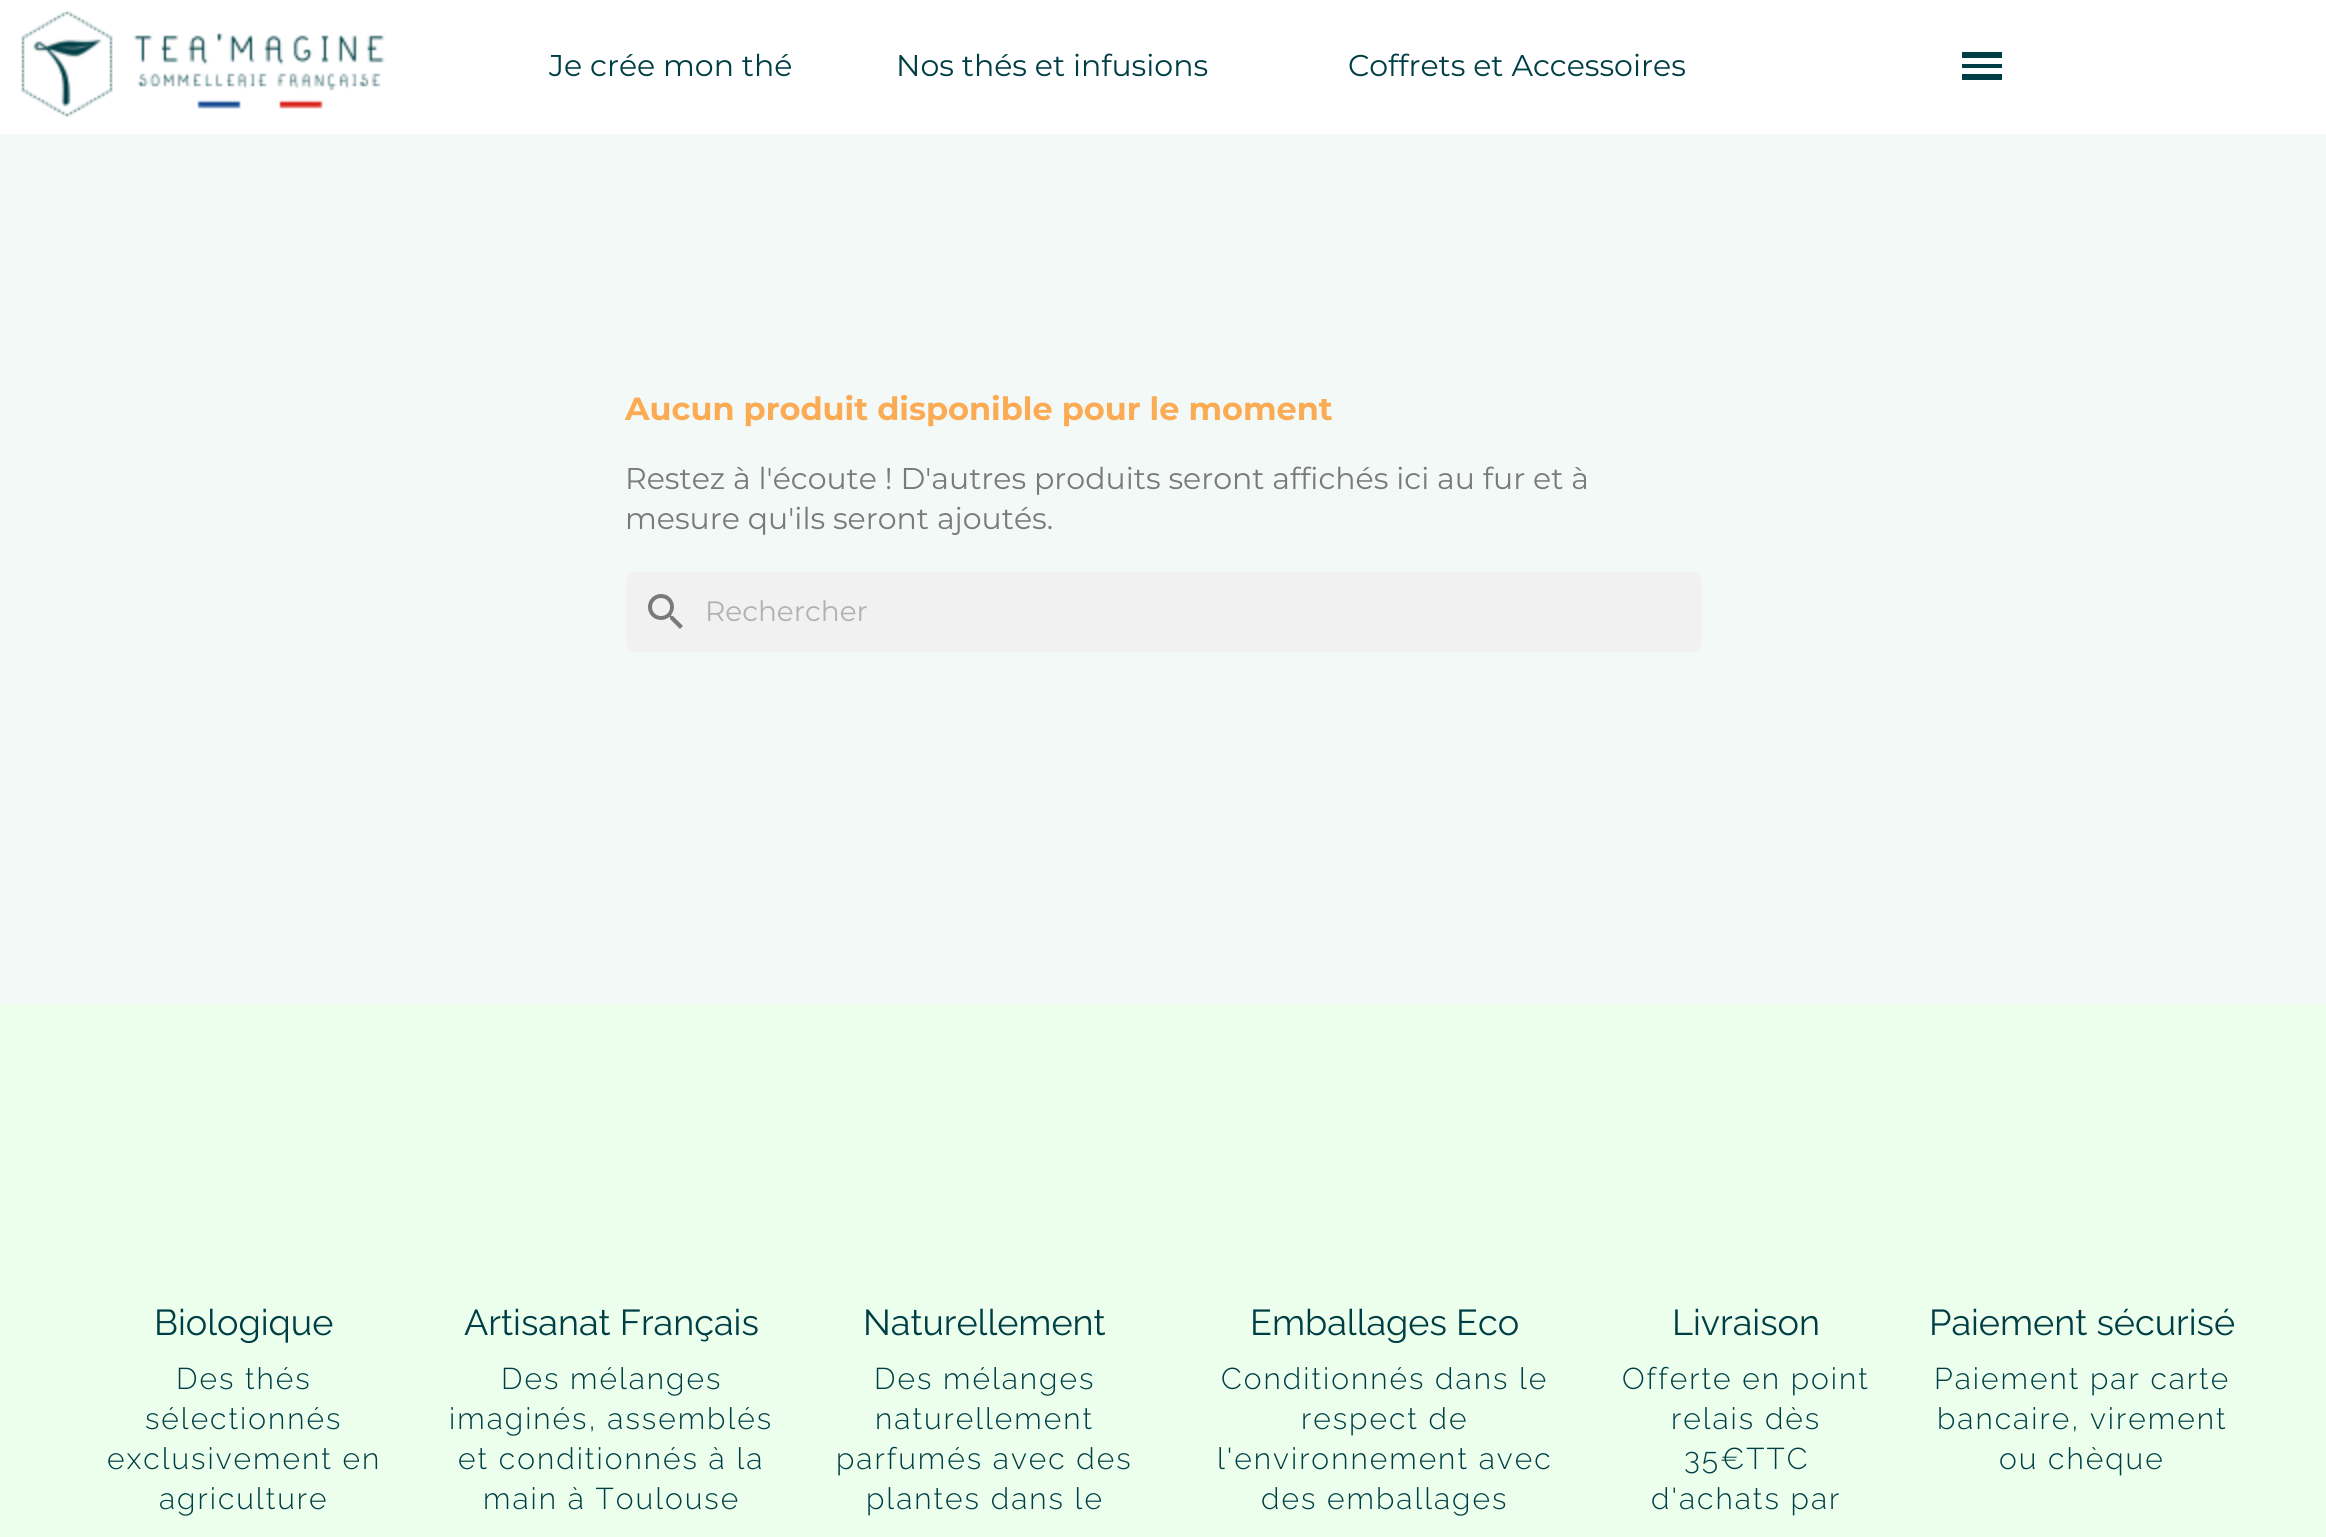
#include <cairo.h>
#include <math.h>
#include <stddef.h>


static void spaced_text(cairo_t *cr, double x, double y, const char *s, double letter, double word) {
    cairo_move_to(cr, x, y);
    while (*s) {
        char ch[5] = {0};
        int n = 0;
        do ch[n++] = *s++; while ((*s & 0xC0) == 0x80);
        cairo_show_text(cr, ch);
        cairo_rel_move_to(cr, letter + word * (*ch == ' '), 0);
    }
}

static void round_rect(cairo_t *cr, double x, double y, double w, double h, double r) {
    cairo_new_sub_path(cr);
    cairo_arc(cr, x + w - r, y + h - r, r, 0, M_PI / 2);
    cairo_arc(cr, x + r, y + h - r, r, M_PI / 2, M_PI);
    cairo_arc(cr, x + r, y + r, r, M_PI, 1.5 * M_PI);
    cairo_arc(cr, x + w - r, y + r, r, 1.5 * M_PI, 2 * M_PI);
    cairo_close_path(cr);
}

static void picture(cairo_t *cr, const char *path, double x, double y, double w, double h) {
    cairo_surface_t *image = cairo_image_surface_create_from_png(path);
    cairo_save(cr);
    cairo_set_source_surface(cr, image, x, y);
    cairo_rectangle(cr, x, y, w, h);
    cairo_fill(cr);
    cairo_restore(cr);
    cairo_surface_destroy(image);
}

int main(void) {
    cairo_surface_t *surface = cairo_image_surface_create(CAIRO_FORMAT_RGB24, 2326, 1537);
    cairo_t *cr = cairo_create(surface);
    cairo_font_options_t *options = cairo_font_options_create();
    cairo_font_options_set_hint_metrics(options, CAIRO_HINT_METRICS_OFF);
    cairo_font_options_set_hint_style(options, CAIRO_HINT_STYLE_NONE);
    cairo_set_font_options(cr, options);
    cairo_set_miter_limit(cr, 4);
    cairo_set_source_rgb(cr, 0.922, 1, 0.922);
    cairo_paint(cr);
    cairo_set_source_rgb(cr, 1, 1, 1);
    cairo_rectangle(cr, 0, 0, 2326, 134);
    cairo_fill(cr);
    picture(cr, "img1.png", 21, 11, 364, 106);
    cairo_select_font_face(cr, "Montserrat", CAIRO_FONT_SLANT_NORMAL, CAIRO_FONT_WEIGHT_NORMAL);
    cairo_set_font_size(cr, 30);
    cairo_set_source_rgb(cr, 0, 0.243, 0.271);
    cairo_move_to(cr, 549, 76);
    cairo_show_text(cr, "Je crée mon thé");
    cairo_move_to(cr, 896, 76);
    cairo_show_text(cr, "Nos thés et infusions");
    cairo_move_to(cr, 1348, 76);
    cairo_show_text(cr, "Coffrets et Accessoires");
    cairo_rectangle(cr, 1962, 64, 40, 4);
    cairo_fill(cr);
    cairo_rectangle(cr, 1962, 52, 40, 6);
    cairo_fill(cr);
    cairo_rectangle(cr, 1962, 74, 40, 6);
    cairo_fill(cr);
    cairo_set_source_rgb(cr, 0.949, 0.976, 0.961);
    cairo_rectangle(cr, 0, 134, 2326, 870);
    cairo_fill(cr);
    cairo_select_font_face(cr, "Montserrat", CAIRO_FONT_SLANT_NORMAL, CAIRO_FONT_WEIGHT_BOLD);
    cairo_set_font_size(cr, 32);
    cairo_set_source_rgb(cr, 0.988, 0.671, 0.333);
    cairo_move_to(cr, 625, 420);
    cairo_show_text(cr, "Aucun produit disponible pour le moment");
    cairo_select_font_face(cr, "Montserrat", CAIRO_FONT_SLANT_NORMAL, CAIRO_FONT_WEIGHT_NORMAL);
    cairo_set_font_size(cr, 30);
    cairo_set_source_rgb(cr, 0.478, 0.478, 0.478);
    cairo_move_to(cr, 625, 489);
    cairo_show_text(cr, "Restez à l'écoute ! D'autres produits seront affichés ici au fur et à");
    cairo_move_to(cr, 625, 529);
    cairo_show_text(cr, "mesure qu'ils seront ajoutés.");
    cairo_set_source_rgb(cr, 0.945, 0.945, 0.945);
    round_rect(cr, 626, 572, 1076, 80, 10);
    cairo_fill(cr);
    picture(cr, "img2.png", 648, 594, 35, 35);
    cairo_set_font_size(cr, 28);
    cairo_set_source_rgb(cr, 0.694, 0.694, 0.694);
    cairo_move_to(cr, 705, 621);
    cairo_show_text(cr, "Rechercher");
    cairo_select_font_face(cr, "Raleway", CAIRO_FONT_SLANT_NORMAL, CAIRO_FONT_WEIGHT_NORMAL);
    cairo_set_font_size(cr, 36);
    cairo_set_source_rgb(cr, 0, 0.243, 0.271);
    cairo_move_to(cr, 154, 1335);
    cairo_show_text(cr, "Biologique");
    cairo_select_font_face(cr, "Raleway Light", CAIRO_FONT_SLANT_NORMAL, CAIRO_FONT_WEIGHT_NORMAL);
    cairo_set_font_size(cr, 30);
    spaced_text(cr, 176, 1389, "Des thés", 2, 0);
    spaced_text(cr, 145, 1429, "sélectionnés", 2, 0);
    spaced_text(cr, 107, 1469, "exclusivement en", 2, 0);
    spaced_text(cr, 159, 1509, "agriculture", 2, 0);
    cairo_select_font_face(cr, "Raleway", CAIRO_FONT_SLANT_NORMAL, CAIRO_FONT_WEIGHT_NORMAL);
    cairo_set_font_size(cr, 36);
    cairo_move_to(cr, 464, 1335);
    cairo_show_text(cr, "Artisanat Français");
    cairo_select_font_face(cr, "Raleway Light", CAIRO_FONT_SLANT_NORMAL, CAIRO_FONT_WEIGHT_NORMAL);
    cairo_set_font_size(cr, 30);
    spaced_text(cr, 501, 1389, "Des mélanges", 2, 0);
    spaced_text(cr, 449, 1429, "imaginés, assemblés", 2, 0);
    spaced_text(cr, 458, 1469, "et conditionnés à la", 2, 0);
    spaced_text(cr, 483, 1509, "main à Toulouse", 2, 0);
    cairo_select_font_face(cr, "Raleway", CAIRO_FONT_SLANT_NORMAL, CAIRO_FONT_WEIGHT_NORMAL);
    cairo_set_font_size(cr, 36);
    cairo_move_to(cr, 863, 1335);
    cairo_show_text(cr, "Naturellement");
    cairo_select_font_face(cr, "Raleway Light", CAIRO_FONT_SLANT_NORMAL, CAIRO_FONT_WEIGHT_NORMAL);
    cairo_set_font_size(cr, 30);
    spaced_text(cr, 874, 1389, "Des mélanges", 2, 0);
    spaced_text(cr, 875, 1429, "naturellement", 2, 0);
    spaced_text(cr, 836, 1469, "parfumés avec des", 2, 0);
    spaced_text(cr, 866, 1509, "plantes dans le", 2, 0);
    cairo_select_font_face(cr, "Raleway", CAIRO_FONT_SLANT_NORMAL, CAIRO_FONT_WEIGHT_NORMAL);
    cairo_set_font_size(cr, 36);
    cairo_move_to(cr, 1250, 1335);
    cairo_show_text(cr, "Emballages Eco");
    cairo_select_font_face(cr, "Raleway Light", CAIRO_FONT_SLANT_NORMAL, CAIRO_FONT_WEIGHT_NORMAL);
    cairo_set_font_size(cr, 30);
    spaced_text(cr, 1221, 1389, "Conditionnés dans le", 2, 0);
    spaced_text(cr, 1301, 1429, "respect de", 2, 0);
    spaced_text(cr, 1217, 1469, "l'environnement avec", 2, 0);
    spaced_text(cr, 1261, 1509, "des emballages", 2, 0);
    cairo_select_font_face(cr, "Raleway", CAIRO_FONT_SLANT_NORMAL, CAIRO_FONT_WEIGHT_NORMAL);
    cairo_set_font_size(cr, 36);
    cairo_move_to(cr, 1672, 1335);
    cairo_show_text(cr, "Livraison");
    cairo_select_font_face(cr, "Raleway Light", CAIRO_FONT_SLANT_NORMAL, CAIRO_FONT_WEIGHT_NORMAL);
    cairo_set_font_size(cr, 30);
    spaced_text(cr, 1622, 1389, "Offerte en point", 2, 0);
    spaced_text(cr, 1671, 1429, "relais dès", 2, 0);
    spaced_text(cr, 1684, 1469, "35€TTC", 2, 0);
    spaced_text(cr, 1651, 1509, "d'achats par", 2, 0);
    cairo_select_font_face(cr, "Raleway", CAIRO_FONT_SLANT_NORMAL, CAIRO_FONT_WEIGHT_NORMAL);
    cairo_set_font_size(cr, 36);
    cairo_move_to(cr, 1929, 1335);
    cairo_show_text(cr, "Paiement sécurisé");
    cairo_select_font_face(cr, "Raleway Light", CAIRO_FONT_SLANT_NORMAL, CAIRO_FONT_WEIGHT_NORMAL);
    cairo_set_font_size(cr, 30);
    spaced_text(cr, 1934, 1389, "Paiement par carte", 2, 0);
    spaced_text(cr, 1937, 1429, "bancaire, virement", 2, 0);
    spaced_text(cr, 1999, 1469, "ou chèque", 2, 0);
    cairo_surface_write_to_png(surface, "page.png");
    cairo_font_options_destroy(options);
    cairo_destroy(cr);
    cairo_surface_destroy(surface);
    return 0;
}
